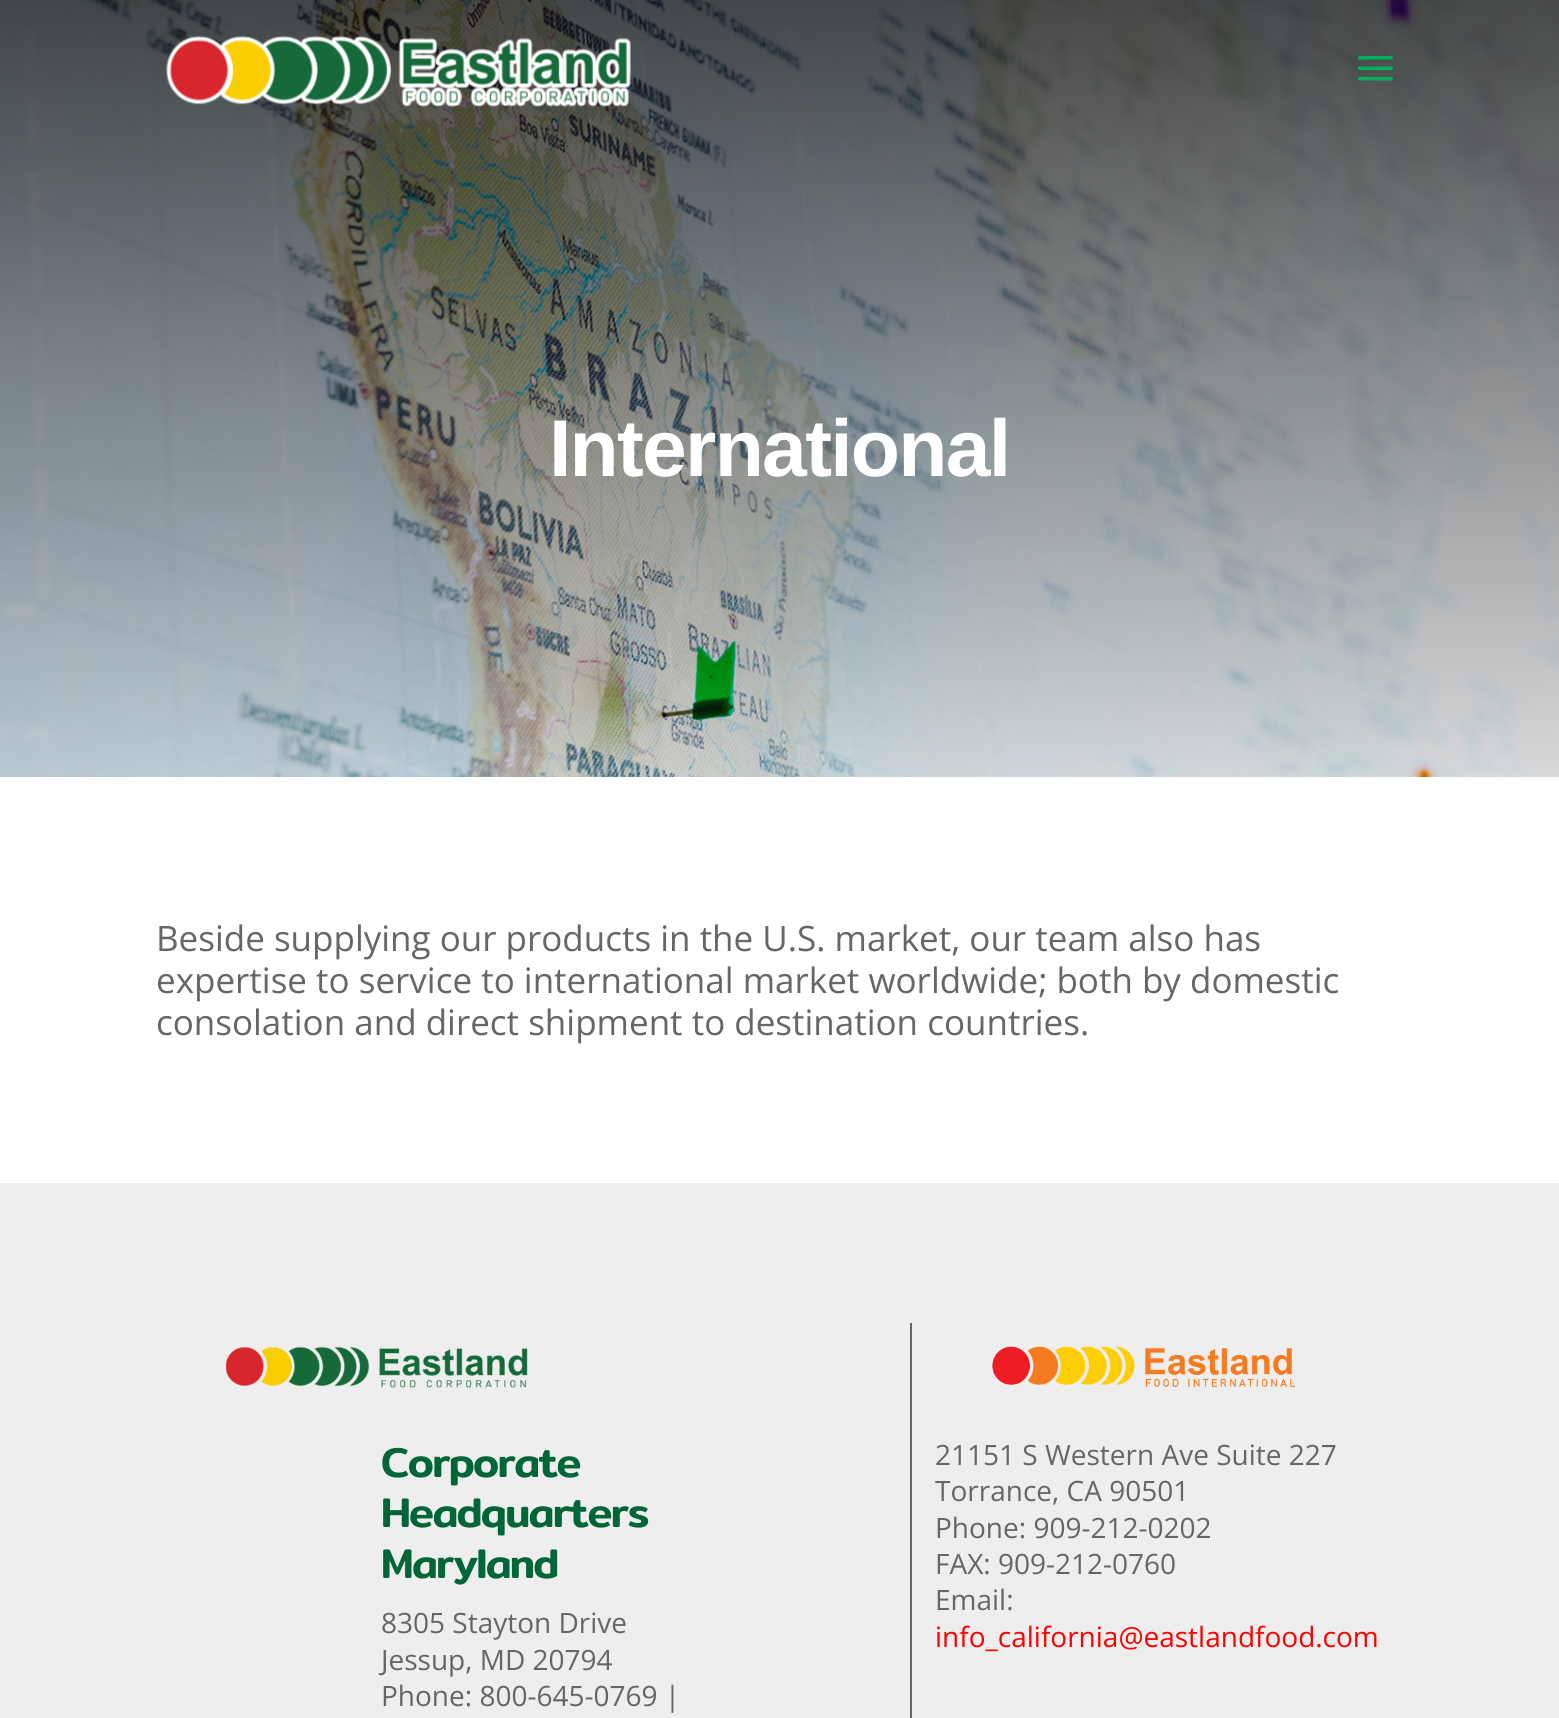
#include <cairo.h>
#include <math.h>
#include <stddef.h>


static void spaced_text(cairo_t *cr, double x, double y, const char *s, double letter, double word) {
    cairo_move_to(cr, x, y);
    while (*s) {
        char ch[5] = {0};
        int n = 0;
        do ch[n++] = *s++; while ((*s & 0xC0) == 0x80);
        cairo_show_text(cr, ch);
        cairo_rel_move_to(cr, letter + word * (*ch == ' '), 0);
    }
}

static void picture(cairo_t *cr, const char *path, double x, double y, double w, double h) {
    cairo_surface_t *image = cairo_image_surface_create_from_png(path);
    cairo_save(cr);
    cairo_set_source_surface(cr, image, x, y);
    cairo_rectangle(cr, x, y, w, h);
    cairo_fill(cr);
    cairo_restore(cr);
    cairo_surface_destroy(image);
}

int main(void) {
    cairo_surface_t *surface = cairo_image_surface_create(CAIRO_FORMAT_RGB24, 1559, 1718);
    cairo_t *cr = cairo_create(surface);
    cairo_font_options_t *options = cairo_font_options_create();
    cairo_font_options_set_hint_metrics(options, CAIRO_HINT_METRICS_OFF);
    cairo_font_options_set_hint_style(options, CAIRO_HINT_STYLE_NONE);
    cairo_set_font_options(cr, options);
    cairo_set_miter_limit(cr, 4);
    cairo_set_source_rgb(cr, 1, 1, 1);
    cairo_paint(cr);
    picture(cr, "img3.png", 0, 0, 1559, 777);
    picture(cr, "img1.png", 165, 35, 466, 72);
    picture(cr, "img2.png", 1358, 56, 35, 25);
    cairo_select_font_face(cr, "Liberation Sans", CAIRO_FONT_SLANT_NORMAL, CAIRO_FONT_WEIGHT_BOLD);
    cairo_set_font_size(cr, 80.5);
    cairo_set_source_rgb(cr, 1, 1, 1);
    spaced_text(cr, 549, 476, "International", -1.75, 0);
    cairo_select_font_face(cr, "Open Sans", CAIRO_FONT_SLANT_NORMAL, CAIRO_FONT_WEIGHT_NORMAL);
    cairo_set_font_size(cr, 35);
    cairo_set_source_rgb(cr, 0.4, 0.4, 0.4);
    cairo_move_to(cr, 156, 951);
    cairo_show_text(cr, "Beside supplying our products in the U.S. market, our team also has");
    cairo_move_to(cr, 156, 993);
    cairo_show_text(cr, "expertise to service to international market worldwide; both by domestic");
    cairo_move_to(cr, 156, 1035);
    cairo_show_text(cr, "consolation and direct shipment to destination countries.");
    cairo_set_source_rgb(cr, 0.933, 0.933, 0.933);
    cairo_rectangle(cr, 0, 1183, 1559, 535);
    cairo_fill(cr);
    cairo_set_source_rgb(cr, 0.4, 0.4, 0.4);
    cairo_rectangle(cr, 910, 1323, 2, 395);
    cairo_fill(cr);
    picture(cr, "img4.png", 226, 1346, 302, 42);
    cairo_select_font_face(cr, "Mitr Medium", CAIRO_FONT_SLANT_NORMAL, CAIRO_FONT_WEIGHT_NORMAL);
    cairo_set_font_size(cr, 42);
    cairo_set_source_rgb(cr, 0, 0.396, 0.216);
    spaced_text(cr, 381, 1477, "Corporate", -1.75, 0);
    spaced_text(cr, 381, 1527, "Headquarters", -1.75, 0);
    spaced_text(cr, 381, 1578, "Maryland", -1.75, 0);
    cairo_select_font_face(cr, "Open Sans", CAIRO_FONT_SLANT_NORMAL, CAIRO_FONT_WEIGHT_NORMAL);
    cairo_set_font_size(cr, 28);
    cairo_set_source_rgb(cr, 0.4, 0.4, 0.4);
    cairo_move_to(cr, 381, 1633);
    cairo_show_text(cr, "8305 Stayton Drive");
    cairo_move_to(cr, 381, 1670);
    cairo_show_text(cr, "Jessup, MD 20794");
    cairo_move_to(cr, 381, 1706);
    cairo_show_text(cr, "Phone: 800-645-0769 |");
    picture(cr, "img5.png", 992, 1346, 304, 41);
    cairo_move_to(cr, 935, 1465);
    cairo_show_text(cr, "21151 S Western Ave Suite 227");
    cairo_move_to(cr, 935, 1501);
    cairo_show_text(cr, "Torrance, CA 90501");
    cairo_move_to(cr, 935, 1538);
    cairo_show_text(cr, "Phone: 909-212-0202");
    cairo_move_to(cr, 935, 1574);
    cairo_show_text(cr, "FAX: 909-212-0760");
    cairo_move_to(cr, 935, 1610);
    cairo_show_text(cr, "Email:");
    cairo_set_source_rgb(cr, 1, 0, 0);
    cairo_move_to(cr, 935, 1647);
    cairo_show_text(cr, "info_california@eastlandfood.com");
    cairo_surface_write_to_png(surface, "page.png");
    cairo_font_options_destroy(options);
    cairo_destroy(cr);
    cairo_surface_destroy(surface);
    return 0;
}
